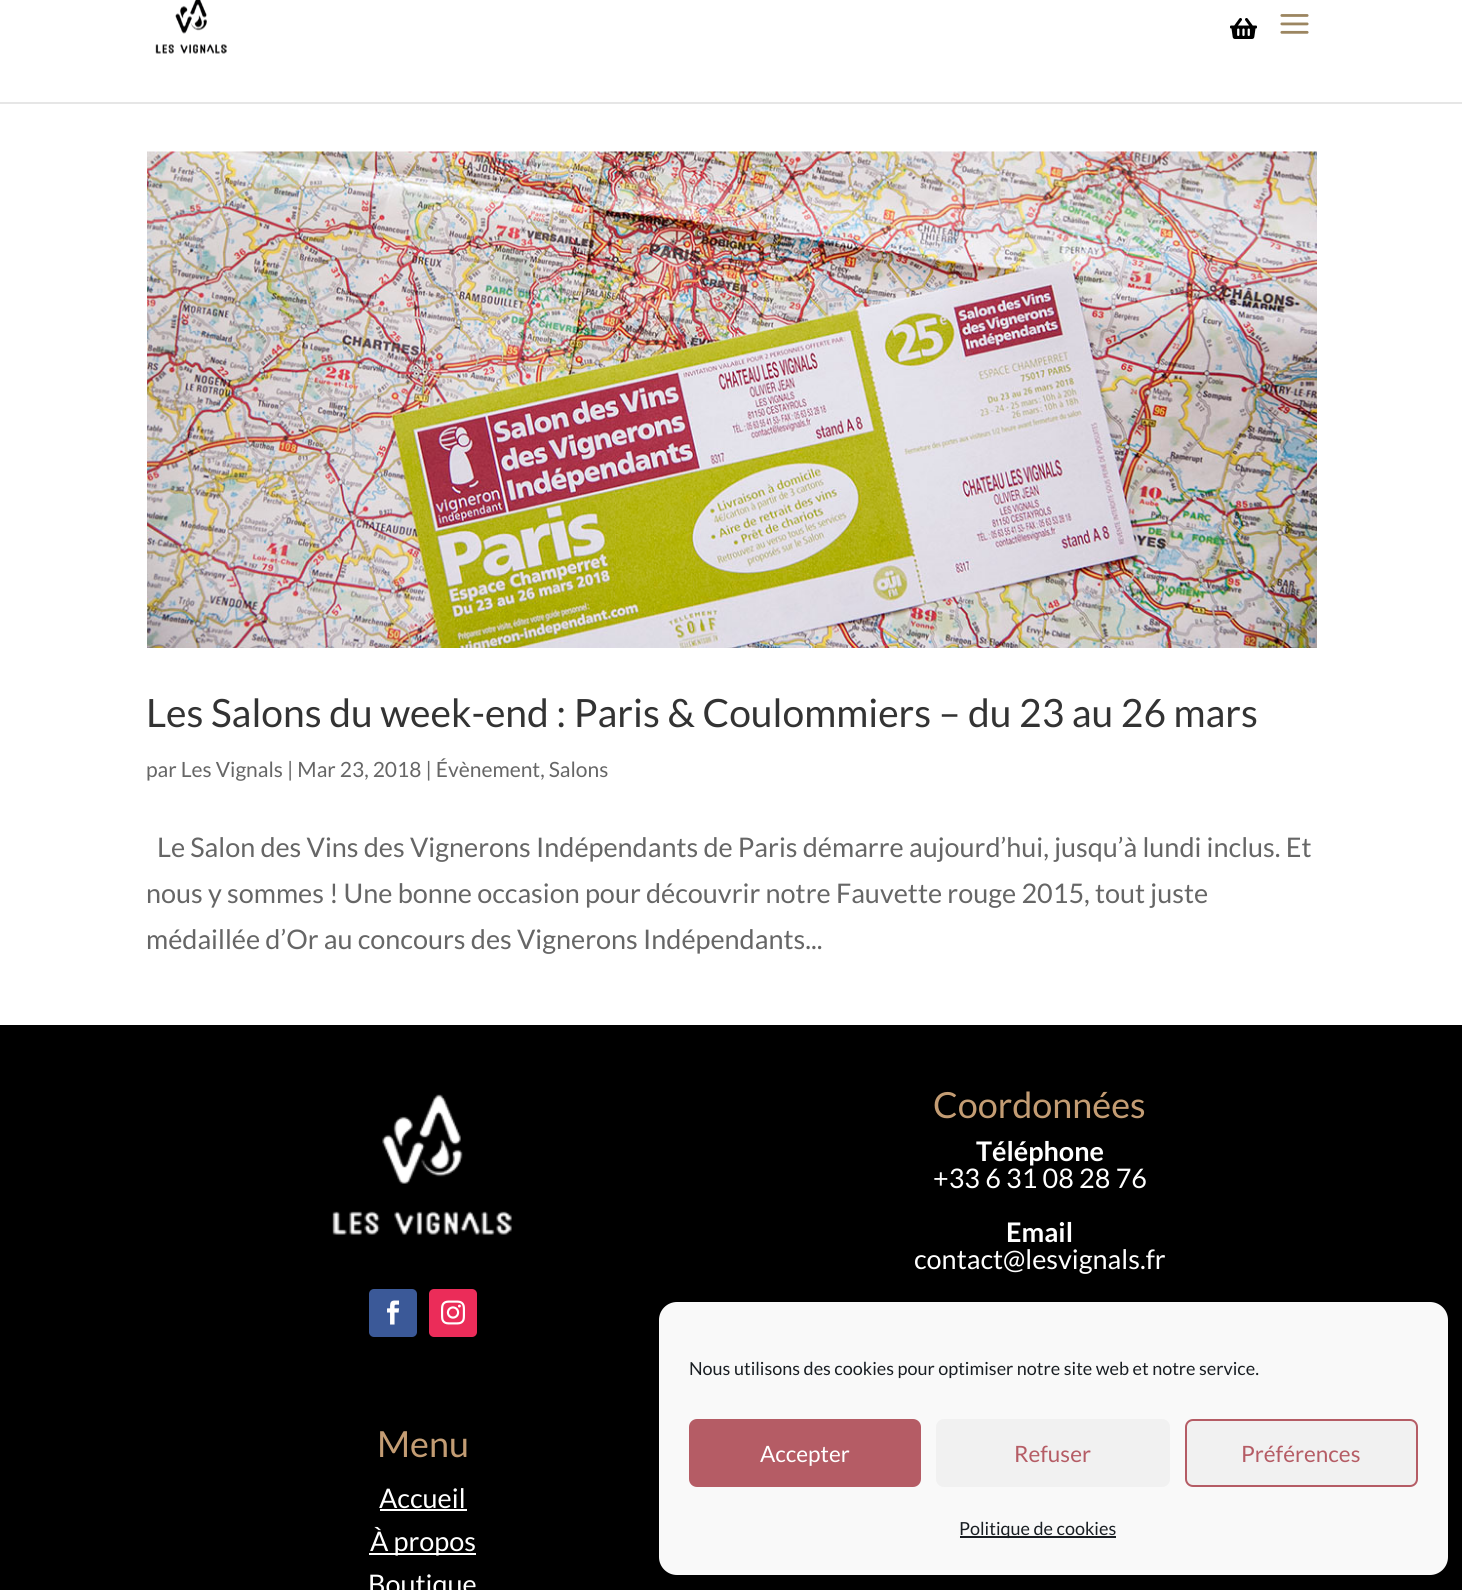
#include <cairo.h>
#include <math.h>
#include <stddef.h>


static void round_rect(cairo_t *cr, double x, double y, double w, double h, double r) {
    cairo_new_sub_path(cr);
    cairo_arc(cr, x + w - r, y + h - r, r, 0, M_PI / 2);
    cairo_arc(cr, x + r, y + h - r, r, M_PI / 2, M_PI);
    cairo_arc(cr, x + r, y + r, r, M_PI, 1.5 * M_PI);
    cairo_arc(cr, x + w - r, y + r, r, 1.5 * M_PI, 2 * M_PI);
    cairo_close_path(cr);
}

static void picture(cairo_t *cr, const char *path, double x, double y, double w, double h) {
    cairo_surface_t *image = cairo_image_surface_create_from_png(path);
    cairo_save(cr);
    cairo_set_source_surface(cr, image, x, y);
    cairo_rectangle(cr, x, y, w, h);
    cairo_fill(cr);
    cairo_restore(cr);
    cairo_surface_destroy(image);
}

int main(void) {
    cairo_surface_t *surface = cairo_image_surface_create(CAIRO_FORMAT_RGB24, 1462, 1590);
    cairo_t *cr = cairo_create(surface);
    cairo_font_options_t *options = cairo_font_options_create();
    cairo_font_options_set_hint_metrics(options, CAIRO_HINT_METRICS_OFF);
    cairo_font_options_set_hint_style(options, CAIRO_HINT_STYLE_NONE);
    cairo_set_font_options(cr, options);
    cairo_set_miter_limit(cr, 4);
    cairo_set_source_rgb(cr, 1, 1, 1);
    cairo_paint(cr);
    cairo_set_source_rgb(cr, 0.902, 0.902, 0.902);
    cairo_new_path(cr);
    cairo_move_to(cr, 0, 102);
    cairo_line_to(cr, 0, 104);
    cairo_line_to(cr, 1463, 104);
    cairo_line_to(cr, 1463, -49);
    cairo_line_to(cr, 1462, -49);
    cairo_line_to(cr, 1462, 102);
    cairo_close_path(cr);
    cairo_fill(cr);
    picture(cr, "img1.png", 155, 0, 72, 54);
    picture(cr, "img2.png", 1230, 18, 27, 21);
    picture(cr, "img3.png", 1280, 14, 29, 20);
    picture(cr, "img4.png", 147, 151, 1170, 497);
    cairo_select_font_face(cr, "Lato", CAIRO_FONT_SLANT_NORMAL, CAIRO_FONT_WEIGHT_NORMAL);
    cairo_set_font_size(cr, 39);
    cairo_set_source_rgb(cr, 0.2, 0.2, 0.2);
    cairo_move_to(cr, 146, 727);
    cairo_show_text(cr, "Les Salons du week-end : Paris & Coulommiers – du 23 au 26 mars");
    cairo_set_font_size(cr, 21);
    cairo_set_source_rgb(cr, 0.4, 0.4, 0.4);
    cairo_move_to(cr, 146, 777);
    cairo_show_text(cr, "par Les Vignals | Mar 23, 2018 | Évènement, Salons");
    cairo_set_font_size(cr, 27);
    cairo_move_to(cr, 157, 857);
    cairo_show_text(cr, "Le Salon des Vins des Vignerons Indépendants de Paris démarre aujourd’hui, jusqu’à lundi inclus. Et");
    cairo_move_to(cr, 146, 903);
    cairo_show_text(cr, "nous y sommes ! Une bonne occasion pour découvrir notre Fauvette rouge 2015, tout juste");
    cairo_move_to(cr, 146, 949);
    cairo_show_text(cr, "médaillée d’Or au concours des Vignerons Indépendants...");
    cairo_set_source_rgb(cr, 0, 0, 0);
    cairo_rectangle(cr, 0, 1025, 1462, 565);
    cairo_fill(cr);
    picture(cr, "img5.png", 332, 1094, 180, 141);
    cairo_set_source_rgb(cr, 0.231, 0.349, 0.596);
    round_rect(cr, 369, 1289, 48, 48, 5);
    cairo_fill(cr);
    picture(cr, "img6.png", 387, 1300, 13, 25);
    cairo_set_source_rgb(cr, 0.918, 0.173, 0.349);
    round_rect(cr, 429, 1289, 48, 48, 5);
    cairo_fill(cr);
    picture(cr, "img7.png", 441, 1300, 24, 25);
    cairo_set_font_size(cr, 36);
    cairo_set_source_rgb(cr, 0.765, 0.612, 0.451);
    cairo_move_to(cr, 933, 1118);
    cairo_show_text(cr, "Coordonnées");
    cairo_select_font_face(cr, "Lato", CAIRO_FONT_SLANT_NORMAL, CAIRO_FONT_WEIGHT_BOLD);
    cairo_set_font_size(cr, 27);
    cairo_set_source_rgb(cr, 1, 1, 1);
    cairo_move_to(cr, 976, 1161);
    cairo_show_text(cr, "Téléphone");
    cairo_select_font_face(cr, "Lato", CAIRO_FONT_SLANT_NORMAL, CAIRO_FONT_WEIGHT_NORMAL);
    cairo_move_to(cr, 933, 1188);
    cairo_show_text(cr, "+33 6 31 08 28 76");
    cairo_select_font_face(cr, "Lato", CAIRO_FONT_SLANT_NORMAL, CAIRO_FONT_WEIGHT_BOLD);
    cairo_move_to(cr, 1006, 1242);
    cairo_show_text(cr, "Email");
    cairo_select_font_face(cr, "Lato", CAIRO_FONT_SLANT_NORMAL, CAIRO_FONT_WEIGHT_NORMAL);
    cairo_move_to(cr, 914, 1269);
    cairo_show_text(cr, "contact@lesvignals.fr");
    cairo_set_font_size(cr, 36);
    cairo_set_source_rgb(cr, 0.765, 0.612, 0.451);
    cairo_move_to(cr, 377, 1457);
    cairo_show_text(cr, "Menu");
    cairo_set_font_size(cr, 27);
    cairo_set_source_rgb(cr, 1, 1, 1);
    cairo_move_to(cr, 379, 1508);
    cairo_show_text(cr, "Accueil");
    cairo_rectangle(cr, 380, 1509, 87, 2);
    cairo_fill(cr);
    cairo_rectangle(cr, 369, 1553, 107, 2);
    cairo_fill(cr);
    cairo_move_to(cr, 370, 1551);
    cairo_show_text(cr, "À propos");
    cairo_move_to(cr, 368, 1594);
    cairo_show_text(cr, "Boutique");
    cairo_set_source_rgb(cr, 0.976, 0.976, 0.976);
    round_rect(cr, 659, 1302, 789, 273, 18);
    cairo_fill(cr);
    cairo_set_font_size(cr, 18);
    cairo_set_source_rgb(cr, 0.098, 0.118, 0.137);
    cairo_move_to(cr, 689, 1375);
    cairo_show_text(cr, "Nous utilisons des cookies pour optimiser notre site web et notre service.");
    cairo_set_source_rgb(cr, 0.71, 0.361, 0.396);
    round_rect(cr, 690, 1420, 230, 66, 7);
    cairo_fill_preserve(cr);
    cairo_stroke(cr);
    cairo_set_font_size(cr, 22.5);
    cairo_set_source_rgb(cr, 1, 1, 1);
    cairo_move_to(cr, 760, 1462);
    cairo_show_text(cr, "Accepter");
    cairo_set_source_rgb(cr, 0.945, 0.945, 0.945);
    round_rect(cr, 936, 1419, 234, 68, 8);
    cairo_fill(cr);
    cairo_set_source_rgb(cr, 0.71, 0.361, 0.396);
    cairo_move_to(cr, 1014, 1462);
    cairo_show_text(cr, "Refuser");
    cairo_set_source_rgb(cr, 0.945, 0.945, 0.945);
    round_rect(cr, 1186, 1420, 231, 66, 7);
    cairo_fill_preserve(cr);
    cairo_set_source_rgb(cr, 0.71, 0.361, 0.396);
    cairo_stroke(cr);
    cairo_move_to(cr, 1241, 1462);
    cairo_show_text(cr, "Préférences");
    cairo_set_source_rgb(cr, 0.098, 0.118, 0.137);
    cairo_rectangle(cr, 960, 1536, 156, 2);
    cairo_fill(cr);
    cairo_set_font_size(cr, 18);
    cairo_move_to(cr, 959, 1535);
    cairo_show_text(cr, "Politique de cookies");
    cairo_surface_write_to_png(surface, "page.png");
    cairo_font_options_destroy(options);
    cairo_destroy(cr);
    cairo_surface_destroy(surface);
    return 0;
}
